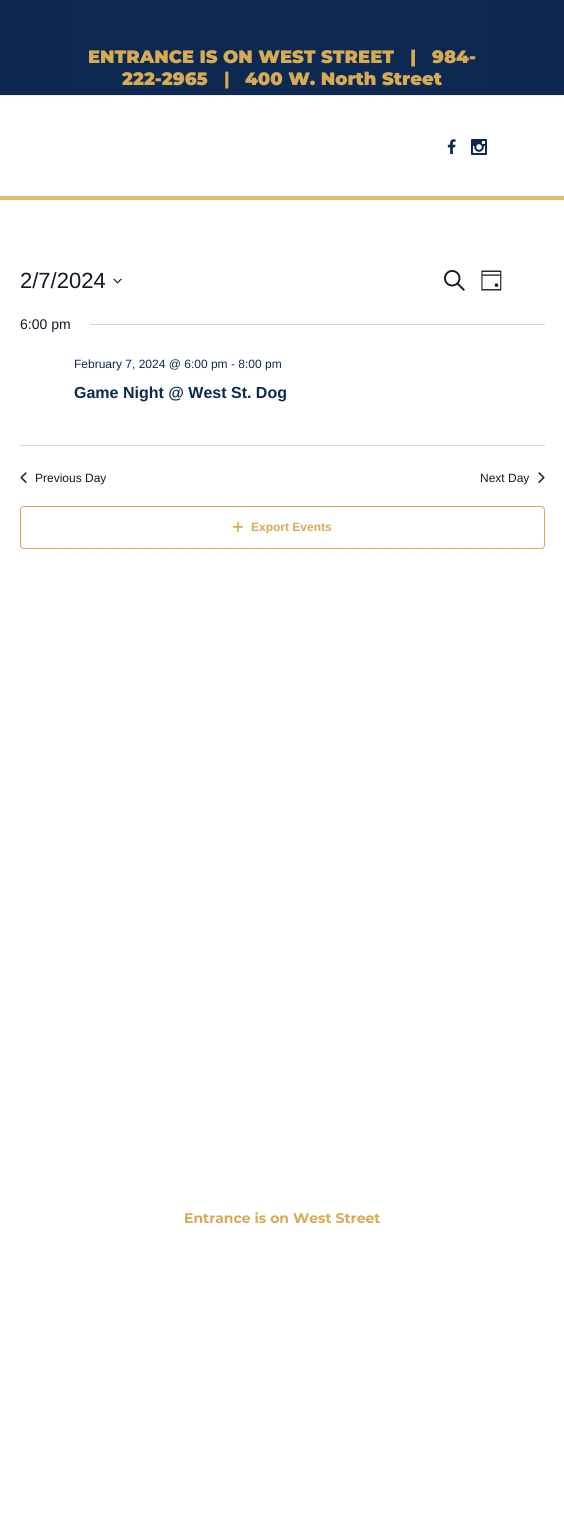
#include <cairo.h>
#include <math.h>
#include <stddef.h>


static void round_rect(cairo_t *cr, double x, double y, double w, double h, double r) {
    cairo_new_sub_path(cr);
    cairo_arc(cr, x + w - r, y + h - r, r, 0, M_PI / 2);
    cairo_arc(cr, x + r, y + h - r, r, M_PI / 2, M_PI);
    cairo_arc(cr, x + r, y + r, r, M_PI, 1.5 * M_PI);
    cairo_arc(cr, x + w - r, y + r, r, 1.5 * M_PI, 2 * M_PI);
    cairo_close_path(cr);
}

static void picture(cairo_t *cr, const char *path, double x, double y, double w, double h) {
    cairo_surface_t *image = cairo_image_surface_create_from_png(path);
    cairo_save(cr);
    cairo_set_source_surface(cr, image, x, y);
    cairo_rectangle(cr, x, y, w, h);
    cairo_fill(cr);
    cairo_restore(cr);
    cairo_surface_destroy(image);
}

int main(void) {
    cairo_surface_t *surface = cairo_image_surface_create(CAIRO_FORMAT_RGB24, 564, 1525);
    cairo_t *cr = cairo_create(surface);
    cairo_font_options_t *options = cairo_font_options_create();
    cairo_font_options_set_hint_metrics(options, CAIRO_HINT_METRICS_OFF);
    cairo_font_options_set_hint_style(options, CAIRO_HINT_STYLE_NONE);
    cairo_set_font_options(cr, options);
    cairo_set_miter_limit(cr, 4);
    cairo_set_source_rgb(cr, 1, 1, 1);
    cairo_paint(cr);
    cairo_set_source_rgb(cr, 0.055, 0.161, 0.318);
    cairo_rectangle(cr, 0, 0, 564, 95);
    cairo_fill(cr);
    picture(cr, "img1.png", 0, 0, 564, 95);
    cairo_set_source_rgb(cr, 0.929, 0.929, 0.929);
    cairo_rectangle(cr, 0, 95, 564, 1);
    cairo_fill(cr);
    cairo_set_source_rgb(cr, 0.055, 0.161, 0.318);
    cairo_rectangle(cr, 72, 0, 420, 95);
    cairo_fill(cr);
    cairo_select_font_face(cr, "Montserrat Black", CAIRO_FONT_SLANT_NORMAL, CAIRO_FONT_WEIGHT_NORMAL);
    cairo_set_font_size(cr, 18);
    cairo_set_source_rgb(cr, 0.843, 0.667, 0.329);
    cairo_move_to(cr, 88, 63);
    cairo_show_text(cr, "ENTRANCE IS ON WEST STREET   |");
    cairo_move_to(cr, 432, 63);
    cairo_show_text(cr, "984-");
    cairo_move_to(cr, 122, 85);
    cairo_show_text(cr, "222-2965");
    cairo_select_font_face(cr, "Montserrat ExtraBold", CAIRO_FONT_SLANT_NORMAL, CAIRO_FONT_WEIGHT_NORMAL);
    cairo_move_to(cr, 224, 85);
    cairo_show_text(cr, "|");
    cairo_select_font_face(cr, "Montserrat Black", CAIRO_FONT_SLANT_NORMAL, CAIRO_FONT_WEIGHT_NORMAL);
    cairo_move_to(cr, 245, 85);
    cairo_show_text(cr, "400 W. North Street");
    cairo_set_source_rgb(cr, 0.875, 0.733, 0.463);
    cairo_rectangle(cr, 0, 196, 564, 4);
    cairo_fill(cr);
    picture(cr, "img2.png", 447, 139, 9, 16);
    picture(cr, "img3.png", 471, 139, 16, 16);
    cairo_select_font_face(cr, "Liberation Sans", CAIRO_FONT_SLANT_NORMAL, CAIRO_FONT_WEIGHT_NORMAL);
    cairo_set_font_size(cr, 22);
    cairo_set_source_rgb(cr, 0.078, 0.094, 0.153);
    cairo_move_to(cr, 20, 288);
    cairo_show_text(cr, "2/7/2024");
    picture(cr, "img4.png", 113, 278, 9, 6);
    picture(cr, "img5.png", 444, 270, 21, 21);
    picture(cr, "img6.png", 481, 270, 21, 21);
    cairo_set_font_size(cr, 14);
    cairo_move_to(cr, 20, 329);
    cairo_show_text(cr, "6:00 pm");
    cairo_set_source_rgb(cr, 0.835, 0.835, 0.835);
    cairo_rectangle(cr, 90, 324, 455, 1);
    cairo_fill(cr);
    cairo_set_font_size(cr, 12);
    cairo_set_source_rgb(cr, 0.055, 0.161, 0.318);
    cairo_move_to(cr, 74, 368);
    cairo_show_text(cr, "February 7, 2024 @ 6:00 pm - 8:00 pm");
    cairo_select_font_face(cr, "Liberation Sans", CAIRO_FONT_SLANT_NORMAL, CAIRO_FONT_WEIGHT_BOLD);
    cairo_set_font_size(cr, 16);
    cairo_move_to(cr, 74, 398);
    cairo_show_text(cr, "Game Night @ West St. Dog");
    cairo_set_source_rgb(cr, 0.835, 0.835, 0.835);
    cairo_rectangle(cr, 20, 445, 525, 1);
    cairo_fill(cr);
    picture(cr, "img7.png", 20, 472, 7, 11);
    cairo_select_font_face(cr, "Liberation Sans", CAIRO_FONT_SLANT_NORMAL, CAIRO_FONT_WEIGHT_NORMAL);
    cairo_set_font_size(cr, 12);
    cairo_set_source_rgb(cr, 0.078, 0.094, 0.153);
    cairo_move_to(cr, 35, 482);
    cairo_show_text(cr, "Previous Day");
    cairo_move_to(cr, 480, 482);
    cairo_show_text(cr, "Next Day");
    picture(cr, "img8.png", 538, 472, 7, 11);
    round_rect(cr, 20.5, 506.5, 524, 42, 3.5);
    cairo_set_source_rgb(cr, 0.843, 0.667, 0.329);
    cairo_set_line_width(cr, 1);
    cairo_stroke(cr);
    picture(cr, "img9.png", 233, 522, 10, 10);
    cairo_select_font_face(cr, "Liberation Sans", CAIRO_FONT_SLANT_NORMAL, CAIRO_FONT_WEIGHT_BOLD);
    cairo_move_to(cr, 251, 531);
    cairo_show_text(cr, "Export Events");
    cairo_select_font_face(cr, "Montserrat", CAIRO_FONT_SLANT_NORMAL, CAIRO_FONT_WEIGHT_BOLD);
    cairo_set_font_size(cr, 14);
    cairo_move_to(cr, 184, 1223);
    cairo_show_text(cr, "Entrance is on West Street");
    cairo_surface_write_to_png(surface, "page.png");
    cairo_font_options_destroy(options);
    cairo_destroy(cr);
    cairo_surface_destroy(surface);
    return 0;
}
